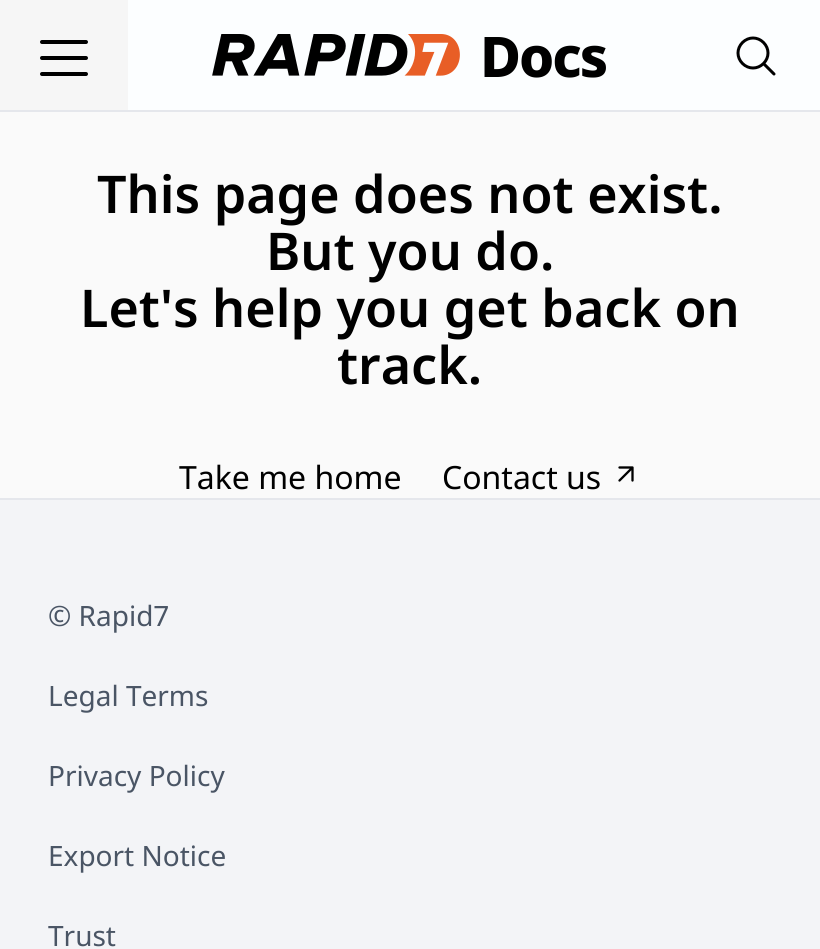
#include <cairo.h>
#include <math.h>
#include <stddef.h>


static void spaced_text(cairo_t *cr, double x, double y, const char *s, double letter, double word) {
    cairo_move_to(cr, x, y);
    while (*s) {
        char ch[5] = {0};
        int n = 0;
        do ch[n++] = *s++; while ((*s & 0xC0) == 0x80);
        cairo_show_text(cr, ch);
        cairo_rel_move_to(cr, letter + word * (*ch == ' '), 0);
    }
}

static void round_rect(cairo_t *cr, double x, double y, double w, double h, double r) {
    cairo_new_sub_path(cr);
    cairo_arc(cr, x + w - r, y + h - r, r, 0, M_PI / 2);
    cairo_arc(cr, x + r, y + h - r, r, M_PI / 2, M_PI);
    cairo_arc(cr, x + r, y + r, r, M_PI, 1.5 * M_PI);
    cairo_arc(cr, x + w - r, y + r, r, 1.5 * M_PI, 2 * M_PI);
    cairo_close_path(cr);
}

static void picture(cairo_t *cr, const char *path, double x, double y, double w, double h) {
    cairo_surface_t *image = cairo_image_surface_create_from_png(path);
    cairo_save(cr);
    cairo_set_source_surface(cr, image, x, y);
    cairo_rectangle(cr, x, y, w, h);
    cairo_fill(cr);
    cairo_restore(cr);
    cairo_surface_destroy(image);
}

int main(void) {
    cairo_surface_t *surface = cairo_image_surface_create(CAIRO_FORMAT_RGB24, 820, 949);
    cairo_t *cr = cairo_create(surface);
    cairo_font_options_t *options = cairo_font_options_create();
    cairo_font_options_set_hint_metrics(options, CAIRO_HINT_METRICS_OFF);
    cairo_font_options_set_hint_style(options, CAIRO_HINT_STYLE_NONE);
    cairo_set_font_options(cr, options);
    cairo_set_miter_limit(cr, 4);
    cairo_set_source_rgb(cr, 0.98, 0.98, 0.98);
    cairo_paint(cr);
    cairo_set_source_rgb(cr, 0.898, 0.906, 0.922);
    cairo_rectangle(cr, 0, 110, 820, 2);
    cairo_fill(cr);
    cairo_set_source_rgb(cr, 0.988, 0.996, 1);
    cairo_rectangle(cr, 128, 0, 692, 110);
    cairo_fill(cr);
    cairo_set_source_rgb(cr, 0.961, 0.961, 0.961);
    cairo_rectangle(cr, 0, 0, 128, 110);
    cairo_fill(cr);
    cairo_set_source_rgb(cr, 0, 0, 0);
    round_rect(cr, 40, 40, 48, 4, 2);
    cairo_fill(cr);
    round_rect(cr, 40, 56, 48, 4, 2);
    cairo_fill(cr);
    round_rect(cr, 40, 72, 48, 4, 2);
    cairo_fill(cr);
    picture(cr, "img1.png", 212, 34, 248, 42);
    cairo_select_font_face(cr, "Noto Sans ExtraBold", CAIRO_FONT_SLANT_NORMAL, CAIRO_FONT_WEIGHT_NORMAL);
    cairo_set_font_size(cr, 56);
    spaced_text(cr, 480, 77, "Docs", -2, 0);
    cairo_new_path(cr);
    cairo_move_to(cr, 774, 74);
    cairo_line_to(cr, 763.5, 63.5);
    cairo_move_to(cr, 763.5, 63.5);
    cairo_curve_to(cr, 769.5, 57.5, 769.5, 48.5, 763.5, 42.5);
    cairo_curve_to(cr, 757.5, 36.5, 748.5, 36.5, 742.5, 42.5);
    cairo_curve_to(cr, 736.5, 48.5, 736.5, 57.5, 742.5, 63.5);
    cairo_curve_to(cr, 748.5, 69.5, 757.5, 69.5, 763.5, 63.5);
    cairo_close_path(cr);
    cairo_set_line_width(cr, 3);
    cairo_set_line_cap(cr, CAIRO_LINE_CAP_ROUND);
    cairo_set_line_join(cr, CAIRO_LINE_JOIN_ROUND);
    cairo_stroke(cr);
    cairo_select_font_face(cr, "Noto Sans SemiBold", CAIRO_FONT_SLANT_NORMAL, CAIRO_FONT_WEIGHT_NORMAL);
    cairo_set_font_size(cr, 52);
    cairo_move_to(cr, 97, 213);
    cairo_show_text(cr, "This page does not exist.");
    cairo_move_to(cr, 266, 270);
    cairo_show_text(cr, "But you do.");
    cairo_move_to(cr, 80, 327);
    cairo_show_text(cr, "Let's help you get back on");
    cairo_move_to(cr, 337, 384);
    cairo_show_text(cr, "track.");
    cairo_select_font_face(cr, "Noto Sans", CAIRO_FONT_SLANT_NORMAL, CAIRO_FONT_WEIGHT_NORMAL);
    cairo_set_font_size(cr, 32);
    cairo_move_to(cr, 179, 489);
    cairo_show_text(cr, "Take me home");
    cairo_move_to(cr, 442, 489);
    cairo_show_text(cr, "Contact us");
    cairo_new_path(cr);
    cairo_move_to(cr, 619.5, 480.5);
    cairo_line_to(cr, 632.5, 467.5);
    cairo_move_to(cr, 619.5, 467.5);
    cairo_line_to(cr, 632.5, 467.5);
    cairo_line_to(cr, 632.5, 480.5);
    cairo_set_line_width(cr, 2.3);
    cairo_stroke(cr);
    cairo_set_source_rgb(cr, 0.953, 0.957, 0.965);
    cairo_rectangle(cr, 0, 500, 820, 449);
    cairo_fill(cr);
    cairo_set_source_rgb(cr, 0.898, 0.906, 0.922);
    cairo_rectangle(cr, 0, 498, 820, 2);
    cairo_fill(cr);
    cairo_set_font_size(cr, 28);
    cairo_set_source_rgb(cr, 0.29, 0.333, 0.396);
    cairo_move_to(cr, 48, 626);
    cairo_show_text(cr, "© Rapid7");
    cairo_move_to(cr, 48, 706);
    cairo_show_text(cr, "Legal Terms");
    cairo_move_to(cr, 48, 786);
    cairo_show_text(cr, "Privacy Policy");
    cairo_move_to(cr, 48, 866);
    cairo_show_text(cr, "Export Notice");
    cairo_move_to(cr, 48, 946);
    cairo_show_text(cr, "Trust");
    cairo_surface_write_to_png(surface, "page.png");
    cairo_font_options_destroy(options);
    cairo_destroy(cr);
    cairo_surface_destroy(surface);
    return 0;
}
